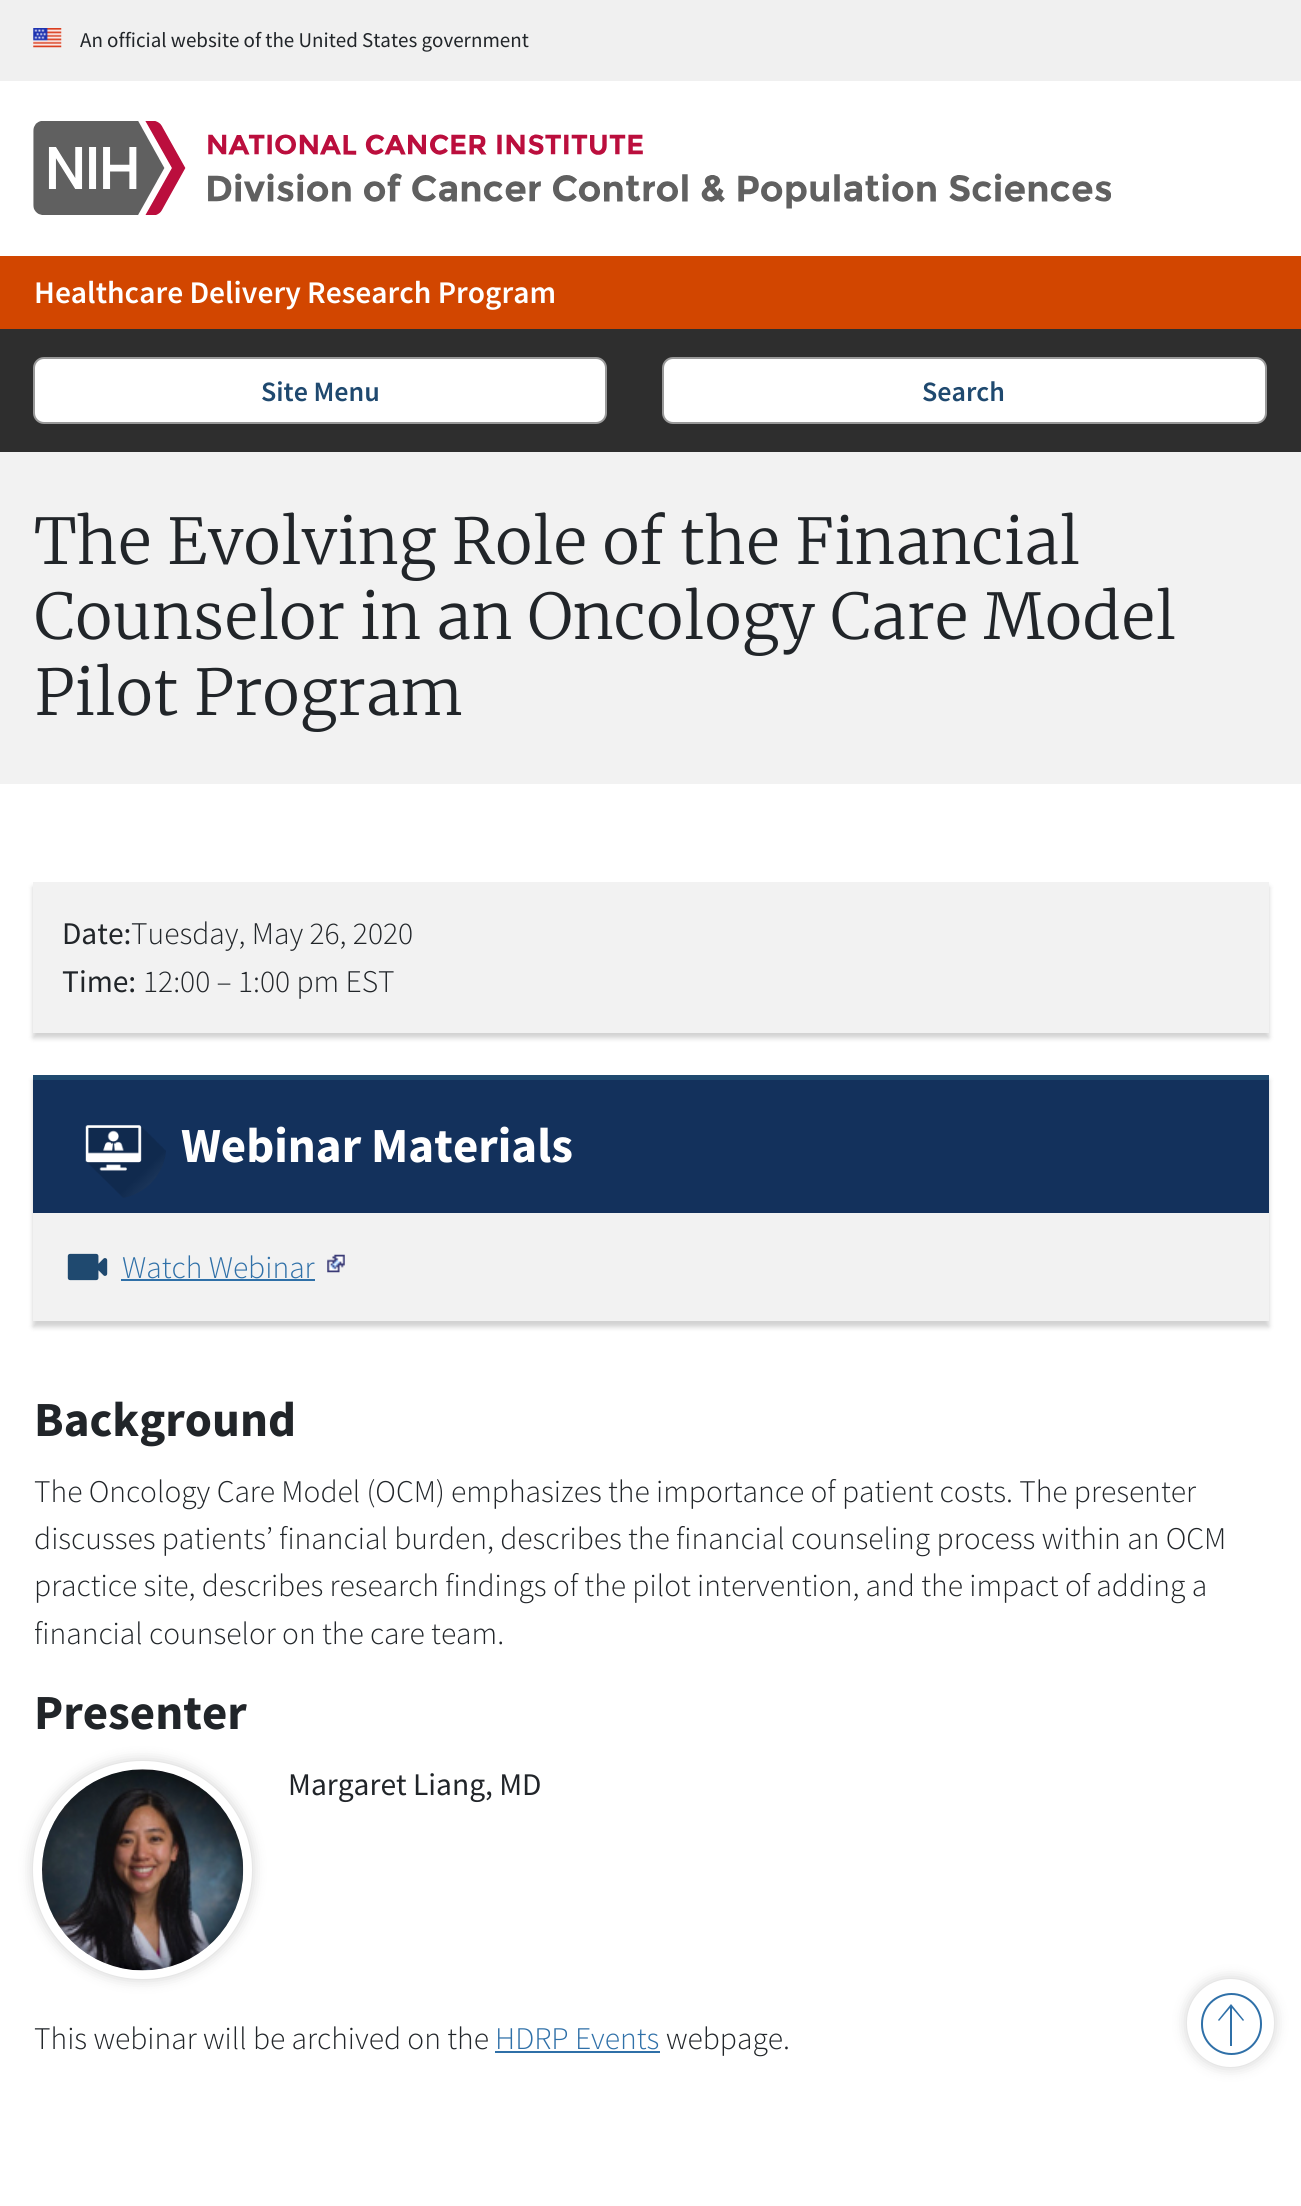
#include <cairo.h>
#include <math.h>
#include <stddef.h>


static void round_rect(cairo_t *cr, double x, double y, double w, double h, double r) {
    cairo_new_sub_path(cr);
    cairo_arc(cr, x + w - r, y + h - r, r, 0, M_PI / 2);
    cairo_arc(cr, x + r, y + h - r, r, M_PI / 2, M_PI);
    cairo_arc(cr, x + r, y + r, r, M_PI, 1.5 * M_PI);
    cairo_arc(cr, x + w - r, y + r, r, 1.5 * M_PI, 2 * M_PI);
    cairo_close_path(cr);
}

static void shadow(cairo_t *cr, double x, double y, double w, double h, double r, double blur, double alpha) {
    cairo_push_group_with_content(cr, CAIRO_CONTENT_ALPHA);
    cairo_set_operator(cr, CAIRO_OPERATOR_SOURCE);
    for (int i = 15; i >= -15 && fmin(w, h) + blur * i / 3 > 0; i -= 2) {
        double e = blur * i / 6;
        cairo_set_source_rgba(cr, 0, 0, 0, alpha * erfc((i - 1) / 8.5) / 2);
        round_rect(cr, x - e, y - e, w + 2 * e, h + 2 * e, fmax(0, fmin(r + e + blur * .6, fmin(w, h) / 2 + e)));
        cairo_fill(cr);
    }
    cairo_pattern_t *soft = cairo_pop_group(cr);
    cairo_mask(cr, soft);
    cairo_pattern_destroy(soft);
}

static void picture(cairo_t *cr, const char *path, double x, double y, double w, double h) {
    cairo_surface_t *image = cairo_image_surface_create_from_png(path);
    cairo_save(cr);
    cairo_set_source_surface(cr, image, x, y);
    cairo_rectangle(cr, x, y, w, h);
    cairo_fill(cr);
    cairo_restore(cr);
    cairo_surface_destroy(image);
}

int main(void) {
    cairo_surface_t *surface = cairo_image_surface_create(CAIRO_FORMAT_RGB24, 1301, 2206);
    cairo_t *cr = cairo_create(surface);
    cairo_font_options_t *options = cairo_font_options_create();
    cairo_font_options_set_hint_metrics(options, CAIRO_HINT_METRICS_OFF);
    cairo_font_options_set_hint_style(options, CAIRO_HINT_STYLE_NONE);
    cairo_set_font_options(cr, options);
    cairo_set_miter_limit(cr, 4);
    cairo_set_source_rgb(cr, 1, 1, 1);
    cairo_paint(cr);
    cairo_set_source_rgb(cr, 0.941, 0.941, 0.941);
    cairo_rectangle(cr, 0, 0, 1301, 81);
    cairo_fill(cr);
    picture(cr, "img1.png", 33, 28, 29, 20);
    cairo_select_font_face(cr, "Source Sans Pro", CAIRO_FONT_SLANT_NORMAL, CAIRO_FONT_WEIGHT_NORMAL);
    cairo_set_font_size(cr, 21);
    cairo_set_source_rgb(cr, 0.129, 0.145, 0.161);
    cairo_move_to(cr, 80, 47);
    cairo_show_text(cr, "An official website of the United States government");
    picture(cr, "img2.png", 33, 121, 1078, 94);
    cairo_set_source_rgb(cr, 0.824, 0.275, 0);
    cairo_rectangle(cr, 0, 256, 1301, 73);
    cairo_fill(cr);
    cairo_select_font_face(cr, "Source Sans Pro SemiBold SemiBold", CAIRO_FONT_SLANT_NORMAL, CAIRO_FONT_WEIGHT_NORMAL);
    cairo_set_font_size(cr, 31.5);
    cairo_set_source_rgb(cr, 1, 1, 1);
    cairo_move_to(cr, 34, 303);
    cairo_show_text(cr, "Healthcare Delivery Research Program");
    cairo_set_source_rgb(cr, 0.18, 0.18, 0.18);
    cairo_rectangle(cr, 0, 329, 1301, 123);
    cairo_fill(cr);
    cairo_set_source_rgb(cr, 1, 1, 1);
    round_rect(cr, 34, 358, 572, 65, 10);
    cairo_fill_preserve(cr);
    cairo_set_source_rgb(cr, 0.6, 0.6, 0.6);
    cairo_stroke(cr);
    cairo_set_font_size(cr, 28);
    cairo_set_source_rgb(cr, 0.122, 0.286, 0.435);
    cairo_move_to(cr, 261, 401);
    cairo_show_text(cr, "Site Menu");
    cairo_set_source_rgb(cr, 1, 1, 1);
    round_rect(cr, 663, 358, 603, 65, 10);
    cairo_fill_preserve(cr);
    cairo_set_source_rgb(cr, 0.6, 0.6, 0.6);
    cairo_stroke(cr);
    cairo_set_source_rgb(cr, 0.122, 0.286, 0.435);
    cairo_move_to(cr, 922, 401);
    cairo_show_text(cr, "Search");
    cairo_set_source_rgb(cr, 0.949, 0.949, 0.949);
    cairo_rectangle(cr, 0, 452, 1301, 332);
    cairo_fill(cr);
    cairo_select_font_face(cr, "Merriweather Light", CAIRO_FONT_SLANT_NORMAL, CAIRO_FONT_WEIGHT_NORMAL);
    cairo_set_font_size(cr, 63);
    cairo_set_source_rgb(cr, 0.129, 0.145, 0.161);
    cairo_move_to(cr, 34, 564);
    cairo_show_text(cr, "The Evolving Role of the Financial");
    cairo_move_to(cr, 34, 639);
    cairo_show_text(cr, "Counselor in an Oncology Care Model");
    cairo_move_to(cr, 34, 715);
    cairo_show_text(cr, "Pilot Program");
    cairo_set_source_rgb(cr, 0, 0, 0);
    shadow(cr, 33, 887, 1236, 151, 0, 2.5, 0.18);
    cairo_set_source_rgb(cr, 0.949, 0.949, 0.949);
    cairo_rectangle(cr, 33, 882, 1236, 151);
    cairo_fill(cr);
    cairo_select_font_face(cr, "Source Sans Pro", CAIRO_FONT_SLANT_NORMAL, CAIRO_FONT_WEIGHT_NORMAL);
    cairo_set_font_size(cr, 31.5);
    cairo_set_source_rgb(cr, 0.129, 0.145, 0.161);
    cairo_move_to(cr, 62, 944);
    cairo_show_text(cr, "Date:");
    cairo_select_font_face(cr, "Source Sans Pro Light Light", CAIRO_FONT_SLANT_NORMAL, CAIRO_FONT_WEIGHT_NORMAL);
    cairo_move_to(cr, 131, 944);
    cairo_show_text(cr, "Tuesday, May 26, 2020");
    cairo_select_font_face(cr, "Source Sans Pro", CAIRO_FONT_SLANT_NORMAL, CAIRO_FONT_WEIGHT_NORMAL);
    cairo_move_to(cr, 62, 992);
    cairo_show_text(cr, "Time:");
    cairo_select_font_face(cr, "Source Sans Pro Light Light", CAIRO_FONT_SLANT_NORMAL, CAIRO_FONT_WEIGHT_NORMAL);
    cairo_move_to(cr, 143, 992);
    cairo_show_text(cr, "12:00 – 1:00 pm EST");
    cairo_set_source_rgb(cr, 0, 0, 0);
    shadow(cr, 33, 1080, 1236, 247, 0, 2.5, 0.18);
    cairo_set_source_rgb(cr, 0.949, 0.949, 0.949);
    cairo_rectangle(cr, 33, 1213, 1236, 108);
    cairo_fill(cr);
    cairo_set_source_rgb(cr, 0.078, 0.192, 0.361);
    cairo_rectangle(cr, 33, 1080, 1236, 133);
    cairo_fill(cr);
    cairo_set_source_rgb(cr, 0.122, 0.286, 0.435);
    cairo_rectangle(cr, 33, 1075, 1236, 5);
    cairo_fill(cr);
    picture(cr, "img3.png", 85, 1125, 81, 73);
    cairo_select_font_face(cr, "Source Sans Pro", CAIRO_FONT_SLANT_NORMAL, CAIRO_FONT_WEIGHT_BOLD);
    cairo_set_font_size(cr, 49);
    cairo_set_source_rgb(cr, 1, 1, 1);
    cairo_move_to(cr, 181, 1162);
    cairo_show_text(cr, "Webinar Materials");
    picture(cr, "img4.png", 67, 1253, 41, 28);
    cairo_select_font_face(cr, "Source Sans Pro Light Light", CAIRO_FONT_SLANT_NORMAL, CAIRO_FONT_WEIGHT_NORMAL);
    cairo_set_font_size(cr, 31.5);
    cairo_set_source_rgb(cr, 0.184, 0.439, 0.659);
    cairo_move_to(cr, 122, 1278);
    cairo_show_text(cr, "Watch Webinar");
    cairo_rectangle(cr, 121, 1279, 194, 2);
    cairo_fill(cr);
    picture(cr, "img5.png", 327, 1254, 18, 19);
    cairo_select_font_face(cr, "Source Sans Pro", CAIRO_FONT_SLANT_NORMAL, CAIRO_FONT_WEIGHT_BOLD);
    cairo_set_font_size(cr, 49);
    cairo_set_source_rgb(cr, 0.129, 0.145, 0.161);
    cairo_move_to(cr, 34, 1436);
    cairo_show_text(cr, "Background");
    cairo_select_font_face(cr, "Source Sans Pro Light Light", CAIRO_FONT_SLANT_NORMAL, CAIRO_FONT_WEIGHT_NORMAL);
    cairo_set_font_size(cr, 31.5);
    cairo_move_to(cr, 34, 1502);
    cairo_show_text(cr, "The Oncology Care Model (OCM) emphasizes the importance of patient costs. The presenter");
    cairo_move_to(cr, 34, 1549);
    cairo_show_text(cr, "discusses patients’ financial burden, describes the financial counseling process within an OCM");
    cairo_move_to(cr, 34, 1596);
    cairo_show_text(cr, "practice site, describes research findings of the pilot intervention, and the impact of adding a");
    cairo_move_to(cr, 34, 1644);
    cairo_show_text(cr, "financial counselor on the care team.");
    cairo_select_font_face(cr, "Source Sans Pro", CAIRO_FONT_SLANT_NORMAL, CAIRO_FONT_WEIGHT_BOLD);
    cairo_set_font_size(cr, 49);
    cairo_move_to(cr, 34, 1729);
    cairo_show_text(cr, "Presenter");
    cairo_set_source_rgb(cr, 0, 0, 0);
    shadow(cr, 33, 1761, 219, 218, 109, 7, 0.2);
    round_rect(cr, 37.5, 1765.5, 210, 209, 104.5);
    cairo_set_source_rgb(cr, 1, 1, 1);
    cairo_set_line_width(cr, 9);
    cairo_stroke(cr);
    picture(cr, "img6.png", 42, 1769, 202, 202);
    cairo_select_font_face(cr, "Source Sans Pro", CAIRO_FONT_SLANT_NORMAL, CAIRO_FONT_WEIGHT_NORMAL);
    cairo_set_font_size(cr, 31.5);
    cairo_set_source_rgb(cr, 0.129, 0.145, 0.161);
    cairo_move_to(cr, 288, 1795);
    cairo_show_text(cr, "Margaret Liang, MD");
    cairo_select_font_face(cr, "Source Sans Pro Light Light", CAIRO_FONT_SLANT_NORMAL, CAIRO_FONT_WEIGHT_NORMAL);
    cairo_move_to(cr, 34, 2049);
    cairo_show_text(cr, "This webinar will be archived on the");
    cairo_set_source_rgb(cr, 0.184, 0.439, 0.659);
    cairo_move_to(cr, 495, 2049);
    cairo_show_text(cr, "HDRP Events");
    cairo_rectangle(cr, 495, 2051, 165, 2);
    cairo_fill(cr);
    cairo_set_source_rgb(cr, 0.129, 0.145, 0.161);
    cairo_move_to(cr, 666, 2049);
    cairo_show_text(cr, "webpage.");
    cairo_set_source_rgb(cr, 0, 0, 0);
    shadow(cr, 1187, 1979, 87, 88, 43.5, 7, 0.2);
    cairo_set_source_rgb(cr, 1, 1, 1);
    round_rect(cr, 1187, 1979, 87, 88, 43.5);
    cairo_fill(cr);
    round_rect(cr, 1202, 1994, 59, 60, 29.5);
    cairo_set_source_rgb(cr, 0.184, 0.439, 0.659);
    cairo_set_line_width(cr, 2);
    cairo_stroke(cr);
    cairo_new_path(cr);
    cairo_move_to(cr, 1230, 2008);
    cairo_line_to(cr, 1219, 2021);
    cairo_line_to(cr, 1218, 2020);
    cairo_line_to(cr, 1231, 2004);
    cairo_line_to(cr, 1244, 2020);
    cairo_line_to(cr, 1243, 2021);
    cairo_line_to(cr, 1232, 2008);
    cairo_line_to(cr, 1232, 2046);
    cairo_line_to(cr, 1230, 2046);
    cairo_close_path(cr);
    cairo_fill(cr);
    cairo_surface_write_to_png(surface, "page.png");
    cairo_font_options_destroy(options);
    cairo_destroy(cr);
    cairo_surface_destroy(surface);
    return 0;
}
